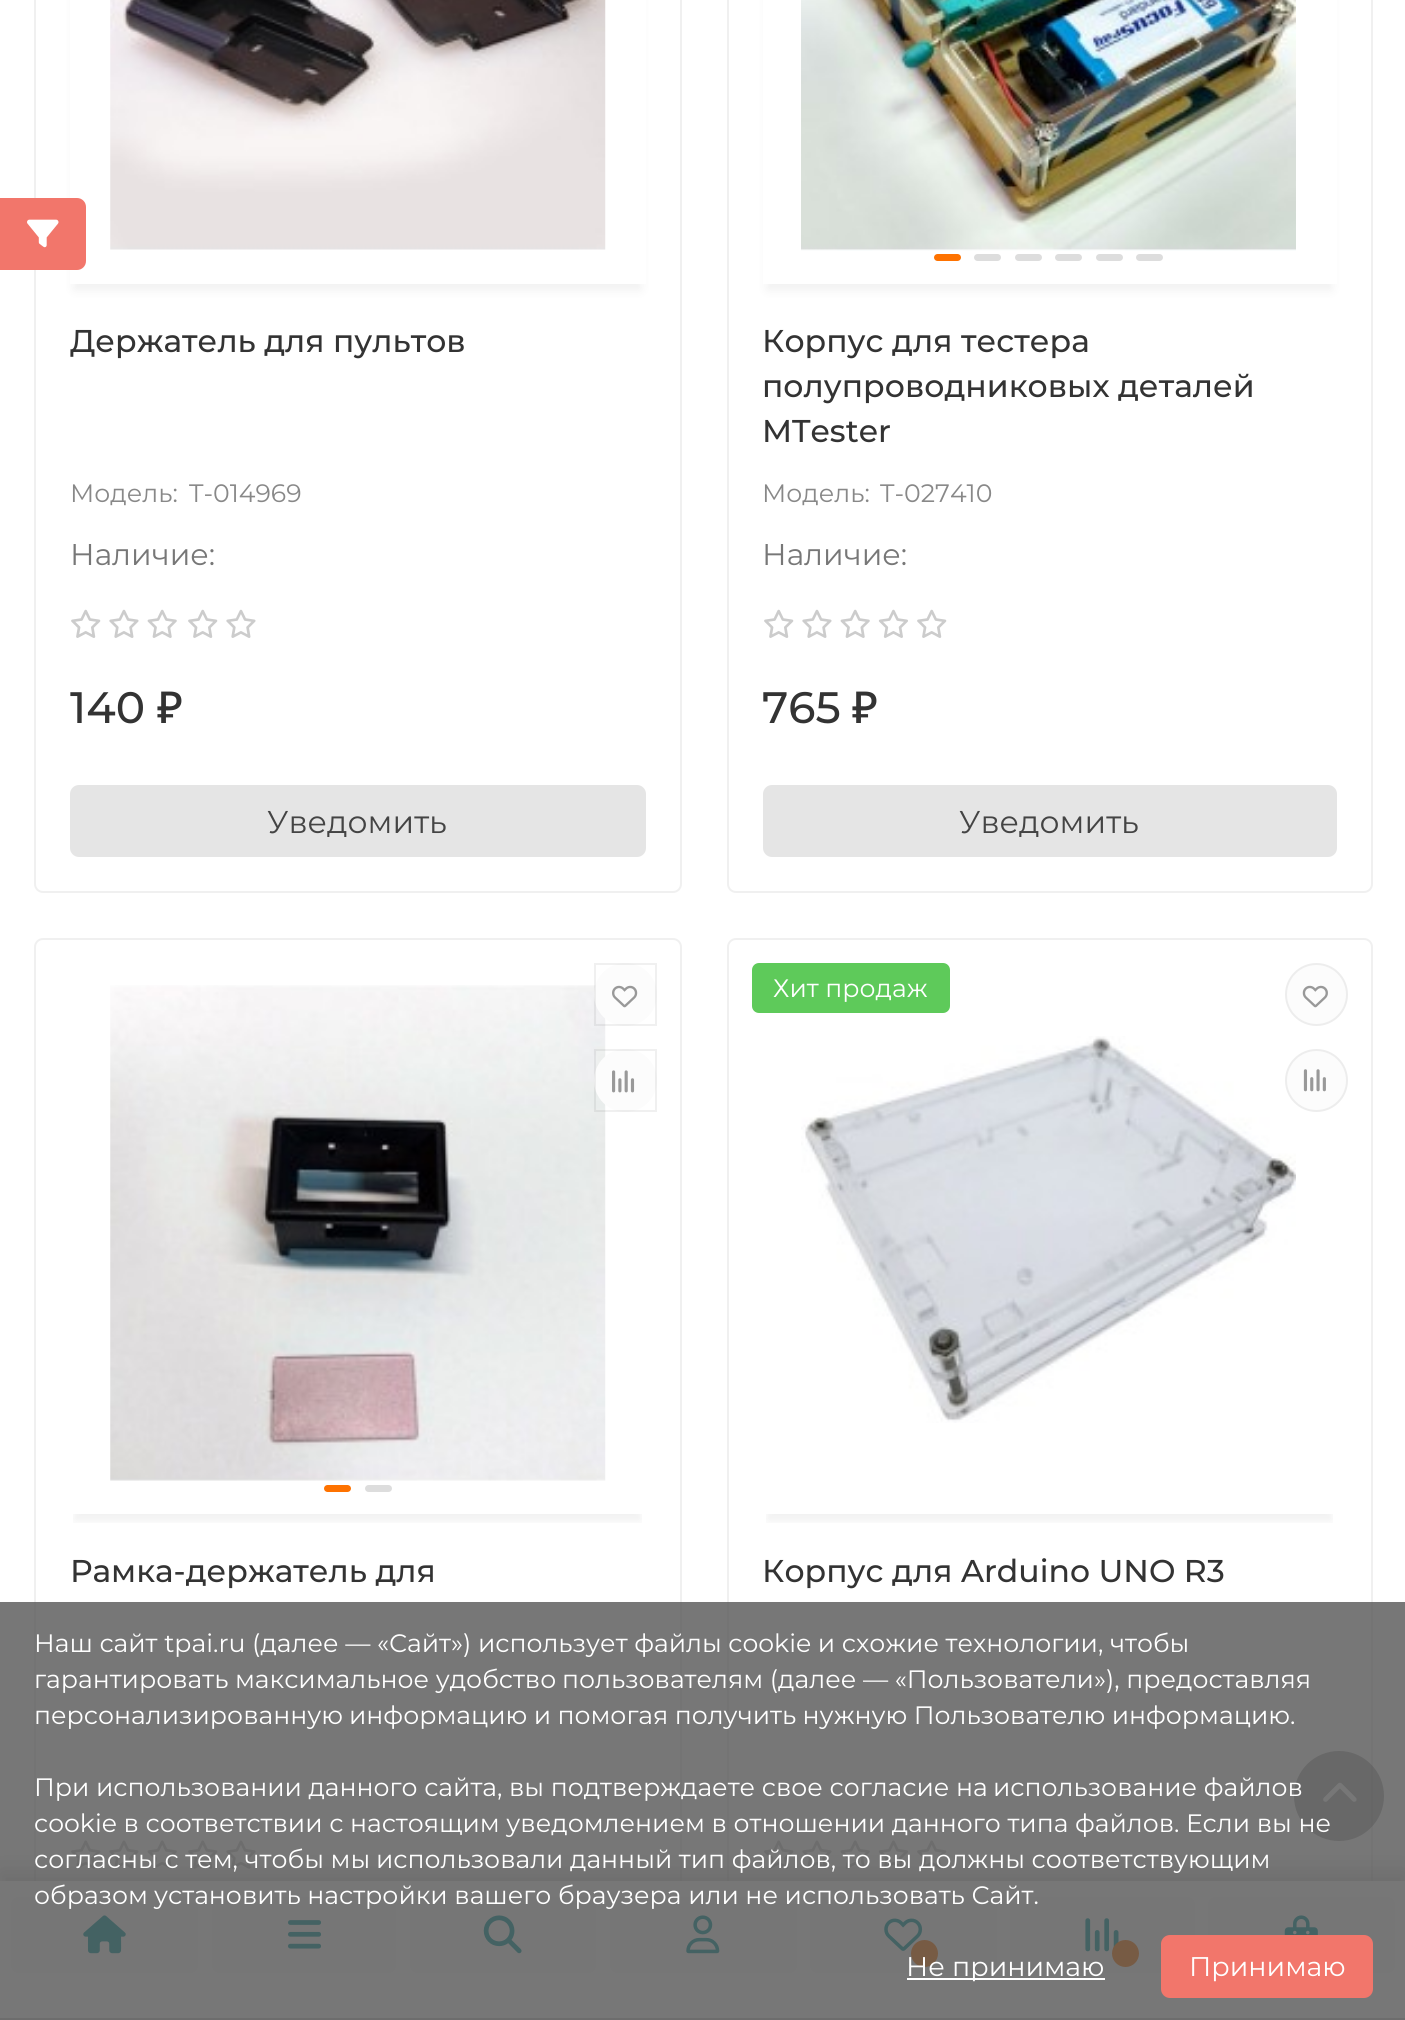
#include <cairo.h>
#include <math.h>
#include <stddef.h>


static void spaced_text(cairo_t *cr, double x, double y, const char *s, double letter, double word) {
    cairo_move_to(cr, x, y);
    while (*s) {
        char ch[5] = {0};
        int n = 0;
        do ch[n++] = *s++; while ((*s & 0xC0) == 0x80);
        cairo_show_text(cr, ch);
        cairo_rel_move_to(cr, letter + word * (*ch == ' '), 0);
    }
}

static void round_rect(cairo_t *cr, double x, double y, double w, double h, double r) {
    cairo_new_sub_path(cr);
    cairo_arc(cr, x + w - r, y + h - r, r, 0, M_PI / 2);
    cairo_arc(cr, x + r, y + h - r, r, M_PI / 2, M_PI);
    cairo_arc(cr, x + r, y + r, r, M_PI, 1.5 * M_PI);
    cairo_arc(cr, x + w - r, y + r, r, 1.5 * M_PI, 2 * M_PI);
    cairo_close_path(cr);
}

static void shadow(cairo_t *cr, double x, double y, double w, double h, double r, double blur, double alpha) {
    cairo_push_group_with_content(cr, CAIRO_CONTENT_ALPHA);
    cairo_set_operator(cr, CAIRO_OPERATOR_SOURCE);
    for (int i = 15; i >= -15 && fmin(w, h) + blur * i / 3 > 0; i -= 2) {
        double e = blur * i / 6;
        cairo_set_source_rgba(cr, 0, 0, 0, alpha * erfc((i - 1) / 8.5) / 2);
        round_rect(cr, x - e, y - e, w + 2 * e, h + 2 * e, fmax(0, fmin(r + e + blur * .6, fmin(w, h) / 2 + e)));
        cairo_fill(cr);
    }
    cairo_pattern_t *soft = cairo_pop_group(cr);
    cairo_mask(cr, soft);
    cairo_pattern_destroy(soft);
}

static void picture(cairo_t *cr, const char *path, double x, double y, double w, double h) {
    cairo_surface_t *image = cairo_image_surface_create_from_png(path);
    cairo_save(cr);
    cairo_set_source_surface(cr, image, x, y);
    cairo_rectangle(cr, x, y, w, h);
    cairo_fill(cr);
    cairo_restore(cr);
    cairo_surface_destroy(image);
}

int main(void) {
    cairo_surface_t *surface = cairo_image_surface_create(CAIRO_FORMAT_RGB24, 1405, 2020);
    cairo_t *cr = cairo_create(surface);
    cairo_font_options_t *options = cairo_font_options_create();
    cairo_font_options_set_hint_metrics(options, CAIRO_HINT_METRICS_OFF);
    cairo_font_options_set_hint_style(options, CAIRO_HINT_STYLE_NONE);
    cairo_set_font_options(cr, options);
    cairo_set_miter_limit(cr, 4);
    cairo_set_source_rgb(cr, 1, 1, 1);
    cairo_paint(cr);
    round_rect(cr, 35, -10, 646, 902, 8);
    cairo_set_source_rgb(cr, 0.941, 0.941, 0.941);
    cairo_stroke(cr);
    cairo_save(cr);
    cairo_set_fill_rule(cr, CAIRO_FILL_RULE_EVEN_ODD);
    cairo_new_path(cr);
    cairo_move_to(cr, 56, 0);
    cairo_line_to(cr, 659, 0);
    cairo_line_to(cr, 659, 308);
    cairo_line_to(cr, 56, 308);
    cairo_close_path(cr);
    cairo_move_to(cr, 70, -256);
    cairo_line_to(cr, 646, -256);
    cairo_line_to(cr, 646, 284);
    cairo_line_to(cr, 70, 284);
    cairo_close_path(cr);
    cairo_clip(cr);
    cairo_set_source_rgb(cr, 0, 0, 0);
    shadow(cr, 74, -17, 567, 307, 0, 5.5, 0.06);
    cairo_restore(cr);
    cairo_set_source_rgb(cr, 0.949, 0.463, 0.42);
    cairo_new_path(cr);
    cairo_move_to(cr, 0, 198);
    cairo_line_to(cr, 77, 198);
    cairo_curve_to(cr, 82, 198, 86, 202, 86, 207);
    cairo_line_to(cr, 86, 261);
    cairo_curve_to(cr, 86, 266, 82, 270, 77, 270);
    cairo_line_to(cr, 0, 270);
    cairo_close_path(cr);
    cairo_fill(cr);
    picture(cr, "img1.png", 27, 219, 32, 29);
    picture(cr, "img2.png", 110, 0, 496, 250);
    cairo_select_font_face(cr, "Montserrat Medium", CAIRO_FONT_SLANT_NORMAL, CAIRO_FONT_WEIGHT_NORMAL);
    cairo_set_font_size(cr, 31.5);
    cairo_set_source_rgb(cr, 0.2, 0.2, 0.2);
    cairo_move_to(cr, 70, 352);
    cairo_show_text(cr, "Держатель для пультов");
    cairo_select_font_face(cr, "Montserrat", CAIRO_FONT_SLANT_NORMAL, CAIRO_FONT_WEIGHT_NORMAL);
    cairo_set_font_size(cr, 25.2);
    cairo_set_source_rgb(cr, 0.533, 0.533, 0.533);
    cairo_move_to(cr, 70, 502);
    cairo_show_text(cr, "Модель:");
    cairo_move_to(cr, 189, 502);
    cairo_show_text(cr, "T-014969");
    cairo_set_font_size(cr, 30);
    cairo_set_source_rgb(cr, 0.467, 0.467, 0.467);
    cairo_move_to(cr, 70, 565);
    cairo_show_text(cr, "Наличие:");
    picture(cr, "img3.png", 71, 609, 30, 29);
    picture(cr, "img4.png", 109, 609, 30, 29);
    picture(cr, "img5.png", 147, 609, 30, 29);
    picture(cr, "img3.png", 188, 609, 30, 29);
    picture(cr, "img4.png", 226, 609, 30, 29);
    cairo_select_font_face(cr, "Montserrat Medium", CAIRO_FONT_SLANT_NORMAL, CAIRO_FONT_WEIGHT_NORMAL);
    cairo_set_font_size(cr, 44);
    cairo_set_source_rgb(cr, 0.2, 0.2, 0.2);
    cairo_move_to(cr, 70, 723);
    cairo_show_text(cr, "140");
    cairo_select_font_face(cr, "Noto Sans Medium", CAIRO_FONT_SLANT_NORMAL, CAIRO_FONT_WEIGHT_NORMAL);
    cairo_move_to(cr, 157, 723);
    cairo_show_text(cr, "₽");
    cairo_set_source_rgb(cr, 0.898, 0.898, 0.898);
    round_rect(cr, 70, 785, 576, 72, 9);
    cairo_fill(cr);
    cairo_select_font_face(cr, "Montserrat", CAIRO_FONT_SLANT_NORMAL, CAIRO_FONT_WEIGHT_NORMAL);
    cairo_set_font_size(cr, 31.5);
    cairo_set_source_rgb(cr, 0.267, 0.267, 0.267);
    cairo_move_to(cr, 267, 833);
    cairo_show_text(cr, "Уведомить");
    round_rect(cr, 728, -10, 644, 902, 8);
    cairo_set_source_rgb(cr, 0.941, 0.941, 0.941);
    cairo_stroke(cr);
    cairo_save(cr);
    cairo_set_fill_rule(cr, CAIRO_FILL_RULE_EVEN_ODD);
    cairo_new_path(cr);
    cairo_move_to(cr, 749, 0);
    cairo_line_to(cr, 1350, 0);
    cairo_line_to(cr, 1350, 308);
    cairo_line_to(cr, 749, 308);
    cairo_close_path(cr);
    cairo_move_to(cr, 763, -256);
    cairo_line_to(cr, 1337, -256);
    cairo_line_to(cr, 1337, 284);
    cairo_line_to(cr, 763, 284);
    cairo_close_path(cr);
    cairo_clip(cr);
    cairo_set_source_rgb(cr, 0, 0, 0);
    shadow(cr, 767, -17, 565, 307, 0, 5.5, 0.06);
    cairo_restore(cr);
    picture(cr, "img6.png", 801, 0, 495, 251);
    cairo_set_source_rgb(cr, 0.996, 0.447, 0);
    round_rect(cr, 934, 254, 27, 7, 3.5);
    cairo_fill(cr);
    cairo_set_source_rgb(cr, 0.867, 0.867, 0.867);
    round_rect(cr, 974, 254, 27, 7, 3.5);
    cairo_fill(cr);
    round_rect(cr, 1015, 254, 27, 7, 3.5);
    cairo_fill(cr);
    round_rect(cr, 1055, 254, 27, 7, 3.5);
    cairo_fill(cr);
    round_rect(cr, 1096, 254, 27, 7, 3.5);
    cairo_fill(cr);
    round_rect(cr, 1136, 254, 27, 7, 3.5);
    cairo_fill(cr);
    cairo_select_font_face(cr, "Montserrat Medium", CAIRO_FONT_SLANT_NORMAL, CAIRO_FONT_WEIGHT_NORMAL);
    cairo_set_source_rgb(cr, 0.2, 0.2, 0.2);
    cairo_move_to(cr, 762, 352);
    cairo_show_text(cr, "Корпус для тестера");
    cairo_move_to(cr, 762, 397);
    cairo_show_text(cr, "полупроводниковых деталей");
    cairo_move_to(cr, 762, 442);
    cairo_show_text(cr, "MTester");
    cairo_select_font_face(cr, "Montserrat", CAIRO_FONT_SLANT_NORMAL, CAIRO_FONT_WEIGHT_NORMAL);
    cairo_set_font_size(cr, 25.2);
    cairo_set_source_rgb(cr, 0.533, 0.533, 0.533);
    cairo_move_to(cr, 762, 502);
    cairo_show_text(cr, "Модель:");
    cairo_move_to(cr, 880, 502);
    cairo_show_text(cr, "T-027410");
    cairo_set_font_size(cr, 30);
    cairo_set_source_rgb(cr, 0.467, 0.467, 0.467);
    cairo_move_to(cr, 762, 565);
    cairo_show_text(cr, "Наличие:");
    picture(cr, "img3.png", 764, 609, 30, 29);
    picture(cr, "img4.png", 802, 609, 30, 29);
    picture(cr, "img5.png", 840, 609, 30, 29);
    picture(cr, "img7.png", 878, 609, 30, 29);
    picture(cr, "img3.png", 917, 609, 30, 29);
    cairo_select_font_face(cr, "Montserrat Medium", CAIRO_FONT_SLANT_NORMAL, CAIRO_FONT_WEIGHT_NORMAL);
    cairo_set_font_size(cr, 44);
    cairo_set_source_rgb(cr, 0.2, 0.2, 0.2);
    cairo_move_to(cr, 762, 723);
    cairo_show_text(cr, "765");
    cairo_select_font_face(cr, "Noto Sans Medium", CAIRO_FONT_SLANT_NORMAL, CAIRO_FONT_WEIGHT_NORMAL);
    cairo_move_to(cr, 852, 723);
    cairo_show_text(cr, "₽");
    cairo_set_source_rgb(cr, 0.898, 0.898, 0.898);
    round_rect(cr, 763, 785, 574, 72, 9);
    cairo_fill(cr);
    cairo_select_font_face(cr, "Montserrat", CAIRO_FONT_SLANT_NORMAL, CAIRO_FONT_WEIGHT_NORMAL);
    cairo_set_font_size(cr, 31.5);
    cairo_set_source_rgb(cr, 0.267, 0.267, 0.267);
    cairo_move_to(cr, 959, 833);
    cairo_show_text(cr, "Уведомить");
    round_rect(cr, 35, 939, 646, 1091, 8);
    cairo_set_source_rgb(cr, 0.941, 0.941, 0.941);
    cairo_stroke(cr);
    cairo_save(cr);
    cairo_rectangle(cr, 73, 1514, 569, 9);
    cairo_clip(cr);
    cairo_set_source_rgb(cr, 0, 0, 0);
    shadow(cr, 74, 990, 567, 531, 0, 5.5, 0.06);
    cairo_restore(cr);
    picture(cr, "img8.png", 110, 985, 496, 496);
    cairo_set_source_rgb(cr, 0.996, 0.447, 0);
    round_rect(cr, 324, 1485, 27, 7, 3.5);
    cairo_fill(cr);
    cairo_set_source_rgb(cr, 0.867, 0.867, 0.867);
    round_rect(cr, 365, 1485, 27, 7, 3.5);
    cairo_fill(cr);
    cairo_set_source_rgb(cr, 0.988, 0.988, 0.988);
    cairo_arc(cr, 625.5, 994.5, 31.5, 0, 2 * M_PI);
    cairo_fill(cr);
    cairo_rectangle(cr, 595, 964, 61, 61);
    cairo_set_source_rgba(cr, 0, 0, 0, 0.06);
    cairo_stroke(cr);
    picture(cr, "img9.png", 612, 985, 26, 23);
    cairo_set_source_rgb(cr, 0.988, 0.988, 0.988);
    cairo_arc(cr, 625.5, 1080.5, 31.5, 0, 2 * M_PI);
    cairo_fill(cr);
    cairo_rectangle(cr, 595, 1050, 61, 61);
    cairo_set_source_rgba(cr, 0, 0, 0, 0.06);
    cairo_stroke(cr);
    picture(cr, "img10.png", 612, 1070, 23, 23);
    cairo_select_font_face(cr, "Montserrat Medium", CAIRO_FONT_SLANT_NORMAL, CAIRO_FONT_WEIGHT_NORMAL);
    cairo_set_source_rgb(cr, 0.2, 0.2, 0.2);
    cairo_move_to(cr, 70, 1582);
    cairo_show_text(cr, "Рамка-держатель для");
    picture(cr, "img11.png", 71, 1840, 30, 29);
    picture(cr, "img12.png", 109, 1840, 30, 29);
    picture(cr, "img13.png", 147, 1840, 30, 29);
    picture(cr, "img11.png", 188, 1840, 30, 29);
    picture(cr, "img12.png", 226, 1840, 30, 29);
    round_rect(cr, 728, 939, 644, 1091, 8);
    cairo_set_source_rgb(cr, 0.941, 0.941, 0.941);
    cairo_stroke(cr);
    cairo_save(cr);
    cairo_rectangle(cr, 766, 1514, 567, 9);
    cairo_clip(cr);
    cairo_set_source_rgb(cr, 0, 0, 0);
    shadow(cr, 767, 990, 565, 531, 0, 5.5, 0.06);
    cairo_restore(cr);
    cairo_set_source_rgb(cr, 0.369, 0.792, 0.353);
    round_rect(cr, 752, 963, 198, 50, 7);
    cairo_fill(cr);
    cairo_select_font_face(cr, "Montserrat", CAIRO_FONT_SLANT_NORMAL, CAIRO_FONT_WEIGHT_NORMAL);
    cairo_set_font_size(cr, 25.2);
    cairo_set_source_rgb(cr, 1, 1, 1);
    cairo_move_to(cr, 773, 997);
    cairo_show_text(cr, "Хит продаж");
    picture(cr, "img14.png", 801, 1036, 495, 387);
    cairo_set_source_rgb(cr, 0.988, 0.988, 0.988);
    cairo_arc(cr, 1316.5, 994.5, 30.5, 0, 2 * M_PI);
    cairo_fill_preserve(cr);
    cairo_set_source_rgb(cr, 0.929, 0.929, 0.929);
    cairo_stroke(cr);
    picture(cr, "img15.png", 1302, 985, 26, 23);
    cairo_set_source_rgb(cr, 0.988, 0.988, 0.988);
    cairo_arc(cr, 1316.5, 1080.5, 30.5, 0, 2 * M_PI);
    cairo_fill_preserve(cr);
    cairo_set_source_rgb(cr, 0.929, 0.929, 0.929);
    cairo_stroke(cr);
    picture(cr, "img16.png", 1303, 1069, 23, 23);
    cairo_select_font_face(cr, "Montserrat Medium", CAIRO_FONT_SLANT_NORMAL, CAIRO_FONT_WEIGHT_NORMAL);
    cairo_set_font_size(cr, 31.5);
    cairo_set_source_rgb(cr, 0.2, 0.2, 0.2);
    cairo_move_to(cr, 762, 1582);
    cairo_show_text(cr, "Корпус для Arduino UNO R3");
    picture(cr, "img11.png", 764, 1840, 30, 29);
    picture(cr, "img12.png", 802, 1840, 30, 29);
    picture(cr, "img13.png", 840, 1840, 30, 29);
    picture(cr, "img17.png", 878, 1840, 30, 29);
    picture(cr, "img11.png", 917, 1840, 30, 29);
    cairo_set_source_rgb(cr, 0, 0, 0);
    shadow(cr, 0, 1872, 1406, 140, 0, 11, 0.2);
    cairo_set_source_rgba(cr, 0, 0, 0, 0.3);
    cairo_arc(cr, 1339, 1796, 45, 0, 2 * M_PI);
    cairo_fill(cr);
    picture(cr, "img18.png", 1323, 1782, 34, 20);
    cairo_set_source_rgb(cr, 1, 1, 1);
    cairo_rectangle(cr, 0, 1881, 1405, 137);
    cairo_fill(cr);
    cairo_set_source_rgb(cr, 0.8, 0.8, 0.8);
    cairo_rectangle(cr, 0, 2018, 1405, 2);
    cairo_fill(cr);
    cairo_set_source_rgb(cr, 0.984, 0.984, 0.984);
    round_rect(cr, 11, 1897, 187, 76, 7);
    cairo_fill(cr);
    picture(cr, "img19.png", 83, 1915, 43, 39);
    round_rect(cr, 212, 1897, 184, 76, 7);
    cairo_fill(cr);
    picture(cr, "img20.png", 288, 1920, 34, 29);
    round_rect(cr, 410, 1897, 186, 76, 7);
    cairo_fill(cr);
    picture(cr, "img21.png", 483, 1915, 39, 39);
    round_rect(cr, 610, 1897, 187, 76, 7);
    cairo_fill(cr);
    picture(cr, "img22.png", 686, 1915, 34, 39);
    round_rect(cr, 810, 1897, 187, 76, 7);
    cairo_fill(cr);
    picture(cr, "img23.png", 884, 1918, 39, 33);
    cairo_set_source_rgb(cr, 0.996, 0.447, 0);
    cairo_arc(cr, 924.5, 1953.5, 13.5, 0, 2 * M_PI);
    cairo_fill(cr);
    cairo_set_source_rgb(cr, 0.984, 0.984, 0.984);
    round_rect(cr, 1010, 1897, 185, 76, 7);
    cairo_fill(cr);
    picture(cr, "img24.png", 1085, 1918, 34, 34);
    cairo_set_source_rgb(cr, 0.996, 0.447, 0);
    cairo_arc(cr, 1125.5, 1953.5, 13.5, 0, 2 * M_PI);
    cairo_fill(cr);
    cairo_set_source_rgb(cr, 0.984, 0.984, 0.984);
    round_rect(cr, 1208, 1897, 187, 76, 7);
    cairo_fill(cr);
    picture(cr, "img25.png", 1284, 1915, 34, 20);
    cairo_set_source_rgba(cr, 0.333, 0.333, 0.333, 0.8);
    cairo_rectangle(cr, 0, 1602, 1405, 418);
    cairo_fill(cr);
    cairo_select_font_face(cr, "Montserrat", CAIRO_FONT_SLANT_NORMAL, CAIRO_FONT_WEIGHT_NORMAL);
    cairo_set_font_size(cr, 25.2);
    cairo_set_source_rgb(cr, 1, 1, 1);
    cairo_move_to(cr, 34, 1652);
    cairo_show_text(cr, "Наш сайт tpai.ru (далее — «Сайт») использует файлы cookie и схожие технологии, чтобы");
    cairo_move_to(cr, 34, 1688);
    cairo_show_text(cr, "гарантировать максимальное удобство");
    cairo_move_to(cr, 562, 1688);
    cairo_show_text(cr, "пользователям (далее — «Пользователи»), предоставляя");
    cairo_move_to(cr, 34, 1724);
    cairo_show_text(cr, "персонализированную");
    spaced_text(cr, 349, 1724, "информацию и помогая получить нужную Пользователю информацию.", 0, -0.25);
    cairo_move_to(cr, 34, 1796);
    cairo_show_text(cr, "При");
    cairo_move_to(cr, 96, 1796);
    cairo_show_text(cr, "использовании данного сайта, вы подтверждаете свое согласие на");
    cairo_move_to(cr, 993, 1796);
    cairo_show_text(cr, "использование файлов");
    cairo_move_to(cr, 34, 1832);
    cairo_show_text(cr, "cookie в соответствии с настоящим уведомлением в отношении данного типа файлов. Если вы не");
    cairo_move_to(cr, 34, 1868);
    cairo_show_text(cr, "согласны с тем, чтобы мы");
    cairo_move_to(cr, 376, 1868);
    cairo_show_text(cr, "использовали данный тип файлов, то вы должны соответствующим");
    cairo_move_to(cr, 34, 1904);
    cairo_show_text(cr, "образом");
    cairo_move_to(cr, 154, 1904);
    cairo_show_text(cr, "установить настройки вашего браузера или не использовать Сайт.");
    cairo_rectangle(cr, 907, 1978, 198, 2);
    cairo_fill(cr);
    cairo_set_font_size(cr, 27);
    cairo_move_to(cr, 906, 1976);
    cairo_show_text(cr, "Не принимаю");
    cairo_set_source_rgb(cr, 0.949, 0.463, 0.42);
    round_rect(cr, 1161, 1935, 212, 63, 9);
    cairo_fill(cr);
    cairo_set_source_rgb(cr, 1, 1, 1);
    cairo_move_to(cr, 1189, 1976);
    cairo_show_text(cr, "Принимаю");
    cairo_surface_write_to_png(surface, "page.png");
    cairo_font_options_destroy(options);
    cairo_destroy(cr);
    cairo_surface_destroy(surface);
    return 0;
}
